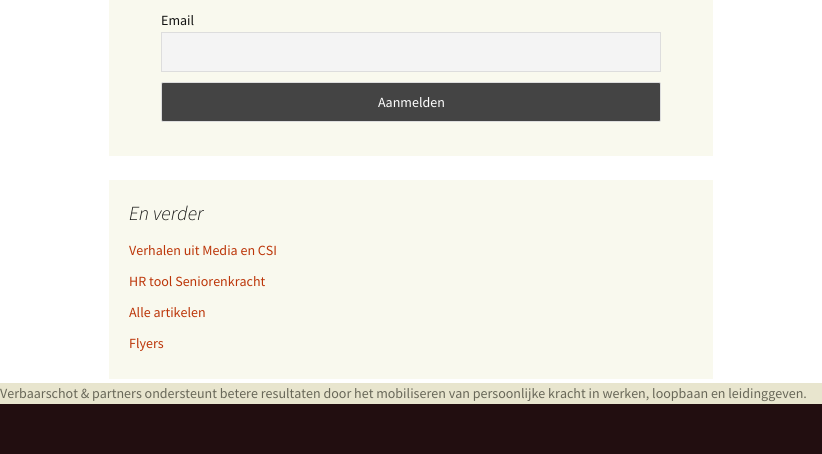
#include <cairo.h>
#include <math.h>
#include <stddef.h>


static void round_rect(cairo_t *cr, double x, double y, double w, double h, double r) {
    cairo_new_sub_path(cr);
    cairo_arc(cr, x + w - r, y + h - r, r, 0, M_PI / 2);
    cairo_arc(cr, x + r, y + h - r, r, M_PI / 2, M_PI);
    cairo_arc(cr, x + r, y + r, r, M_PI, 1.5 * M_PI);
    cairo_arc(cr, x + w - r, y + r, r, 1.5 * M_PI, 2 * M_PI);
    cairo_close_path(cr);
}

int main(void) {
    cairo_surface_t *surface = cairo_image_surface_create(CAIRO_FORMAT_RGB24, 822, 454);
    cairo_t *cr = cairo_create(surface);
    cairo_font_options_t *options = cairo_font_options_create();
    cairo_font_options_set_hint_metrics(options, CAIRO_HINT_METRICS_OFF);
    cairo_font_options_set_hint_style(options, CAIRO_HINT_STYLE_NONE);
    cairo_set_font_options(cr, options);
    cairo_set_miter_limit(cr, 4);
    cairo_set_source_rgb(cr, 1, 1, 1);
    cairo_paint(cr);
    cairo_set_source_rgb(cr, 0.976, 0.973, 0.933);
    cairo_rectangle(cr, 109, 0, 604, 156);
    cairo_fill(cr);
    cairo_select_font_face(cr, "Source Sans Pro", CAIRO_FONT_SLANT_NORMAL, CAIRO_FONT_WEIGHT_NORMAL);
    cairo_set_font_size(cr, 14);
    cairo_set_source_rgb(cr, 0.078, 0.078, 0.071);
    cairo_move_to(cr, 161, 25);
    cairo_show_text(cr, "Email");
    cairo_set_source_rgb(cr, 0.957, 0.957, 0.957);
    cairo_rectangle(cr, 161.5, 32.5, 499, 39);
    cairo_fill_preserve(cr);
    cairo_set_source_rgb(cr, 0.867, 0.867, 0.867);
    cairo_set_line_width(cr, 1);
    cairo_stroke(cr);
    cairo_set_source_rgb(cr, 0.267, 0.267, 0.267);
    round_rect(cr, 161.5, 82.5, 499, 39, 1.5);
    cairo_fill_preserve(cr);
    cairo_set_source_rgb(cr, 0.867, 0.867, 0.867);
    cairo_stroke(cr);
    cairo_set_source_rgb(cr, 1, 1, 1);
    cairo_move_to(cr, 378, 107);
    cairo_show_text(cr, "Aanmelden");
    cairo_set_source_rgb(cr, 0.976, 0.973, 0.933);
    cairo_rectangle(cr, 109, 180, 604, 199);
    cairo_fill(cr);
    cairo_select_font_face(cr, "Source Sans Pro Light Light", CAIRO_FONT_SLANT_ITALIC, CAIRO_FONT_WEIGHT_NORMAL);
    cairo_set_font_size(cr, 20);
    cairo_set_source_rgb(cr, 0.078, 0.078, 0.071);
    cairo_move_to(cr, 129, 220);
    cairo_show_text(cr, "En verder");
    cairo_select_font_face(cr, "Source Sans Pro", CAIRO_FONT_SLANT_NORMAL, CAIRO_FONT_WEIGHT_NORMAL);
    cairo_set_font_size(cr, 14);
    cairo_set_source_rgb(cr, 0.737, 0.212, 0.039);
    cairo_move_to(cr, 129, 255);
    cairo_show_text(cr, "Verhalen uit Media en CSI");
    cairo_move_to(cr, 129, 286);
    cairo_show_text(cr, "HR tool Seniorenkracht");
    cairo_move_to(cr, 129, 317);
    cairo_show_text(cr, "Alle artikelen");
    cairo_move_to(cr, 129, 348);
    cairo_show_text(cr, "Flyers");
    cairo_set_source_rgb(cr, 0.91, 0.898, 0.808);
    cairo_rectangle(cr, 0, 383, 822, 21);
    cairo_fill(cr);
    cairo_set_source_rgb(cr, 0.408, 0.404, 0.345);
    cairo_move_to(cr, 0, 398);
    cairo_show_text(cr, "Verbaarschot & partners ondersteunt betere resultaten door het mobiliseren van persoonlijke kracht in werken, loopbaan en leidinggeven.");
    cairo_set_source_rgb(cr, 0.133, 0.055, 0.063);
    cairo_rectangle(cr, 0, 404, 822, 50);
    cairo_fill(cr);
    cairo_surface_write_to_png(surface, "page.png");
    cairo_font_options_destroy(options);
    cairo_destroy(cr);
    cairo_surface_destroy(surface);
    return 0;
}
